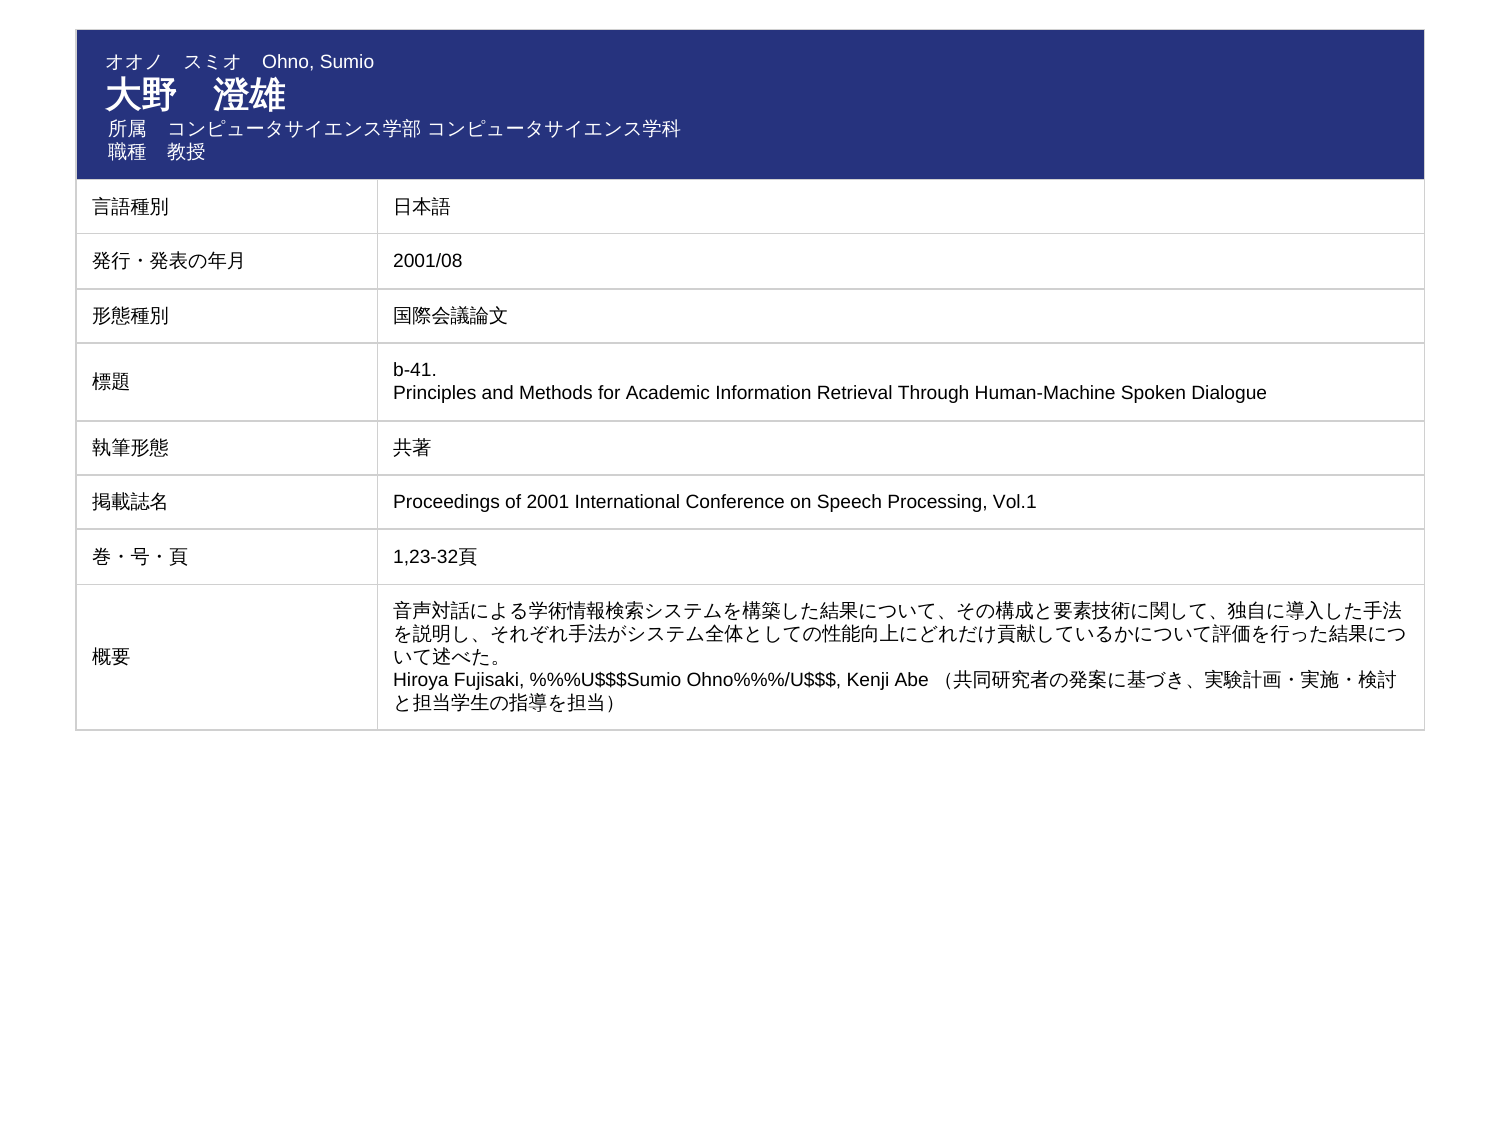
#include <cairo.h>
#include <math.h>
#include <stddef.h>


int main(void) {
    cairo_surface_t *surface = cairo_image_surface_create(CAIRO_FORMAT_RGB24, 1499, 1145);
    cairo_t *cr = cairo_create(surface);
    cairo_font_options_t *options = cairo_font_options_create();
    cairo_font_options_set_hint_metrics(options, CAIRO_HINT_METRICS_OFF);
    cairo_font_options_set_hint_style(options, CAIRO_HINT_STYLE_NONE);
    cairo_set_font_options(cr, options);
    cairo_set_miter_limit(cr, 4);
    cairo_set_source_rgb(cr, 1, 1, 1);
    cairo_paint(cr);
    cairo_set_source_rgb(cr, 0.816, 0.816, 0.816);
    cairo_rectangle(cr, 75, 29, 1350, 702);
    cairo_fill(cr);
    cairo_set_source_rgb(cr, 0.149, 0.2, 0.494);
    cairo_rectangle(cr, 77, 30, 1347, 149);
    cairo_fill(cr);
    cairo_select_font_face(cr, "WenQuanYi Zen Hei Medium", CAIRO_FONT_SLANT_NORMAL, CAIRO_FONT_WEIGHT_NORMAL);
    cairo_set_font_size(cr, 19.2);
    cairo_set_source_rgb(cr, 1, 1, 1);
    cairo_move_to(cr, 105, 68);
    cairo_show_text(cr, "オオノ　スミオ");
    cairo_select_font_face(cr, "Liberation Sans", CAIRO_FONT_SLANT_NORMAL, CAIRO_FONT_WEIGHT_NORMAL);
    cairo_move_to(cr, 262, 68);
    cairo_show_text(cr, "Ohno, Sumio");
    cairo_select_font_face(cr, "WenQuanYi Zen Hei", CAIRO_FONT_SLANT_NORMAL, CAIRO_FONT_WEIGHT_BOLD);
    cairo_set_font_size(cr, 36);
    cairo_move_to(cr, 105, 107);
    cairo_show_text(cr, "大野　澄雄");
    cairo_select_font_face(cr, "WenQuanYi Zen Hei Medium", CAIRO_FONT_SLANT_NORMAL, CAIRO_FONT_WEIGHT_NORMAL);
    cairo_set_font_size(cr, 19.2);
    cairo_move_to(cr, 108, 135);
    cairo_show_text(cr, "所属");
    cairo_move_to(cr, 167, 135);
    cairo_show_text(cr, "コンピュータサイエンス学部 コンピュータサイエンス学科");
    cairo_move_to(cr, 108, 158);
    cairo_show_text(cr, "職種");
    cairo_move_to(cr, 167, 158);
    cairo_show_text(cr, "教授");
    cairo_rectangle(cr, 77, 180, 300, 53);
    cairo_fill(cr);
    cairo_set_source_rgb(cr, 0, 0, 0);
    cairo_move_to(cr, 92, 213);
    cairo_show_text(cr, "言語種別");
    cairo_set_source_rgb(cr, 1, 1, 1);
    cairo_rectangle(cr, 378, 180, 1046, 53);
    cairo_fill(cr);
    cairo_set_source_rgb(cr, 0, 0, 0);
    cairo_move_to(cr, 393, 213);
    cairo_show_text(cr, "日本語");
    cairo_set_source_rgb(cr, 1, 1, 1);
    cairo_rectangle(cr, 77, 234, 300, 54);
    cairo_fill(cr);
    cairo_set_source_rgb(cr, 0, 0, 0);
    cairo_move_to(cr, 92, 267);
    cairo_show_text(cr, "発行・発表の年月");
    cairo_set_source_rgb(cr, 1, 1, 1);
    cairo_rectangle(cr, 378, 234, 1046, 54);
    cairo_fill(cr);
    cairo_select_font_face(cr, "Liberation Sans", CAIRO_FONT_SLANT_NORMAL, CAIRO_FONT_WEIGHT_NORMAL);
    cairo_set_source_rgb(cr, 0, 0, 0);
    cairo_move_to(cr, 393, 267);
    cairo_show_text(cr, "2001/08");
    cairo_set_source_rgb(cr, 1, 1, 1);
    cairo_rectangle(cr, 77, 290, 300, 52);
    cairo_fill(cr);
    cairo_select_font_face(cr, "WenQuanYi Zen Hei Medium", CAIRO_FONT_SLANT_NORMAL, CAIRO_FONT_WEIGHT_NORMAL);
    cairo_set_source_rgb(cr, 0, 0, 0);
    cairo_move_to(cr, 92, 322);
    cairo_show_text(cr, "形態種別");
    cairo_set_source_rgb(cr, 1, 1, 1);
    cairo_rectangle(cr, 378, 290, 1046, 52);
    cairo_fill(cr);
    cairo_set_source_rgb(cr, 0, 0, 0);
    cairo_move_to(cr, 393, 322);
    cairo_show_text(cr, "国際会議論文");
    cairo_set_source_rgb(cr, 1, 1, 1);
    cairo_rectangle(cr, 77, 344, 300, 76);
    cairo_fill(cr);
    cairo_set_source_rgb(cr, 0, 0, 0);
    cairo_move_to(cr, 92, 388);
    cairo_show_text(cr, "標題");
    cairo_set_source_rgb(cr, 1, 1, 1);
    cairo_rectangle(cr, 378, 344, 1046, 76);
    cairo_fill(cr);
    cairo_select_font_face(cr, "Liberation Sans", CAIRO_FONT_SLANT_NORMAL, CAIRO_FONT_WEIGHT_NORMAL);
    cairo_set_source_rgb(cr, 0, 0, 0);
    cairo_move_to(cr, 393, 376);
    cairo_show_text(cr, "b-41.");
    cairo_move_to(cr, 393, 399);
    cairo_show_text(cr, "Principles and Methods for Academic Information Retrieval Through Human-Machine Spoken Dialogue");
    cairo_set_source_rgb(cr, 1, 1, 1);
    cairo_rectangle(cr, 77, 422, 300, 52);
    cairo_fill(cr);
    cairo_select_font_face(cr, "WenQuanYi Zen Hei Medium", CAIRO_FONT_SLANT_NORMAL, CAIRO_FONT_WEIGHT_NORMAL);
    cairo_set_source_rgb(cr, 0, 0, 0);
    cairo_move_to(cr, 92, 454);
    cairo_show_text(cr, "執筆形態");
    cairo_set_source_rgb(cr, 1, 1, 1);
    cairo_rectangle(cr, 378, 422, 1046, 52);
    cairo_fill(cr);
    cairo_set_source_rgb(cr, 0, 0, 0);
    cairo_move_to(cr, 393, 454);
    cairo_show_text(cr, "共著");
    cairo_set_source_rgb(cr, 1, 1, 1);
    cairo_rectangle(cr, 77, 476, 300, 52);
    cairo_fill(cr);
    cairo_set_source_rgb(cr, 0, 0, 0);
    cairo_move_to(cr, 92, 508);
    cairo_show_text(cr, "掲載誌名");
    cairo_set_source_rgb(cr, 1, 1, 1);
    cairo_rectangle(cr, 378, 476, 1046, 52);
    cairo_fill(cr);
    cairo_select_font_face(cr, "Liberation Sans", CAIRO_FONT_SLANT_NORMAL, CAIRO_FONT_WEIGHT_NORMAL);
    cairo_set_source_rgb(cr, 0, 0, 0);
    cairo_move_to(cr, 393, 508);
    cairo_show_text(cr, "Proceedings of 2001 International Conference on Speech Processing, Vol.1");
    cairo_set_source_rgb(cr, 1, 1, 1);
    cairo_rectangle(cr, 77, 530, 300, 54);
    cairo_fill(cr);
    cairo_select_font_face(cr, "WenQuanYi Zen Hei Medium", CAIRO_FONT_SLANT_NORMAL, CAIRO_FONT_WEIGHT_NORMAL);
    cairo_set_source_rgb(cr, 0, 0, 0);
    cairo_move_to(cr, 92, 563);
    cairo_show_text(cr, "巻・号・頁");
    cairo_set_source_rgb(cr, 1, 1, 1);
    cairo_rectangle(cr, 378, 530, 1046, 54);
    cairo_fill(cr);
    cairo_select_font_face(cr, "Liberation Sans", CAIRO_FONT_SLANT_NORMAL, CAIRO_FONT_WEIGHT_NORMAL);
    cairo_set_source_rgb(cr, 0, 0, 0);
    cairo_move_to(cr, 393, 563);
    cairo_show_text(cr, "1,23-32");
    cairo_select_font_face(cr, "WenQuanYi Zen Hei Medium", CAIRO_FONT_SLANT_NORMAL, CAIRO_FONT_WEIGHT_NORMAL);
    cairo_move_to(cr, 458, 563);
    cairo_show_text(cr, "頁");
    cairo_set_source_rgb(cr, 1, 1, 1);
    cairo_rectangle(cr, 77, 585, 300, 144);
    cairo_fill(cr);
    cairo_set_source_rgb(cr, 0, 0, 0);
    cairo_move_to(cr, 92, 663);
    cairo_show_text(cr, "概要");
    cairo_set_source_rgb(cr, 1, 1, 1);
    cairo_rectangle(cr, 378, 585, 1046, 144);
    cairo_fill(cr);
    cairo_set_source_rgb(cr, 0, 0, 0);
    cairo_move_to(cr, 393, 617);
    cairo_show_text(cr, "音声対話による学術情報検索システムを構築した結果について、その構成と要素技術に関して、独自に導入した手法");
    cairo_move_to(cr, 393, 640);
    cairo_show_text(cr, "を説明し、それぞれ手法がシステム全体としての性能向上にどれだけ貢献しているかについて評価を行った結果につ");
    cairo_move_to(cr, 393, 663);
    cairo_show_text(cr, "いて述べた。");
    cairo_select_font_face(cr, "Liberation Sans", CAIRO_FONT_SLANT_NORMAL, CAIRO_FONT_WEIGHT_NORMAL);
    cairo_move_to(cr, 393, 686);
    cairo_show_text(cr, "Hiroya Fujisaki, %%%U$$$Sumio Ohno%%%/U$$$, Kenji Abe");
    cairo_select_font_face(cr, "WenQuanYi Zen Hei Medium", CAIRO_FONT_SLANT_NORMAL, CAIRO_FONT_WEIGHT_NORMAL);
    cairo_move_to(cr, 934, 686);
    cairo_show_text(cr, "（共同研究者の発案に基づき、実験計画・実施・検討");
    cairo_move_to(cr, 393, 709);
    cairo_show_text(cr, "と担当学生の指導を担当）");
    cairo_surface_write_to_png(surface, "page.png");
    cairo_font_options_destroy(options);
    cairo_destroy(cr);
    cairo_surface_destroy(surface);
    return 0;
}
